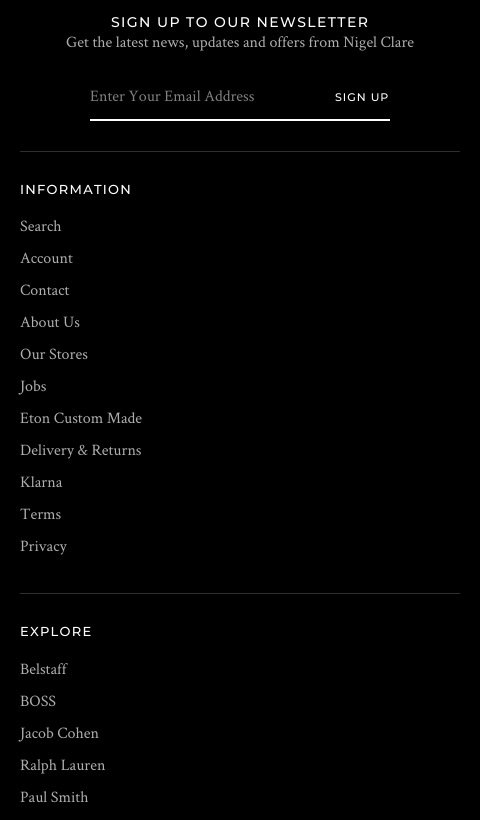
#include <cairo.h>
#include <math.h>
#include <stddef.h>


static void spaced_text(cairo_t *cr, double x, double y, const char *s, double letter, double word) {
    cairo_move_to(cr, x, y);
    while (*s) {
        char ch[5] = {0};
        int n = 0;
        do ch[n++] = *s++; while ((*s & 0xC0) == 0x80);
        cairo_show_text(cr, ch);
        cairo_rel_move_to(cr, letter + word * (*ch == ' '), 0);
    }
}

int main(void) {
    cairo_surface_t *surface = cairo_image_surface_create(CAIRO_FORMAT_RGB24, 480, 820);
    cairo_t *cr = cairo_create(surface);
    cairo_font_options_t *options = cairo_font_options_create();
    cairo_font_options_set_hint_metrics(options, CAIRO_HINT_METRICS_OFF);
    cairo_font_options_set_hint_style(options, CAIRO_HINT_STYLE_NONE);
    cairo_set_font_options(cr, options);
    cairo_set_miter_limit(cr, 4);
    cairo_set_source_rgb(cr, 0, 0, 0);
    cairo_paint(cr);
    cairo_set_source_rgb(cr, 0.18, 0.18, 0.18);
    cairo_rectangle(cr, 20, 151, 440, 1);
    cairo_fill(cr);
    cairo_select_font_face(cr, "Montserrat Thin", CAIRO_FONT_SLANT_NORMAL, CAIRO_FONT_WEIGHT_NORMAL);
    cairo_set_font_size(cr, 14);
    cairo_set_source_rgb(cr, 1, 1, 1);
    spaced_text(cr, 111, 27, "SIGN UP TO OUR NEWSLETTER", 1.4, 0);
    cairo_select_font_face(cr, "Crimson Text", CAIRO_FONT_SLANT_NORMAL, CAIRO_FONT_WEIGHT_NORMAL);
    cairo_set_font_size(cr, 16);
    cairo_set_source_rgb(cr, 0.682, 0.682, 0.682);
    cairo_move_to(cr, 66, 47);
    cairo_show_text(cr, "Get the latest news, updates and offers from Nigel Clare");
    cairo_set_source_rgb(cr, 1, 1, 1);
    cairo_rectangle(cr, 90, 119, 300, 2);
    cairo_fill(cr);
    cairo_set_source_rgb(cr, 0.502, 0.502, 0.502);
    cairo_move_to(cr, 90, 101);
    cairo_show_text(cr, "Enter Your Email Address");
    cairo_select_font_face(cr, "Montserrat Thin", CAIRO_FONT_SLANT_NORMAL, CAIRO_FONT_WEIGHT_NORMAL);
    cairo_set_font_size(cr, 11);
    cairo_set_source_rgb(cr, 1, 1, 1);
    spaced_text(cr, 335, 101, "SIGN UP", 1, 0);
    cairo_set_font_size(cr, 13);
    spaced_text(cr, 20, 194, "INFORMATION", 1.25, 0);
    cairo_select_font_face(cr, "Crimson Text", CAIRO_FONT_SLANT_NORMAL, CAIRO_FONT_WEIGHT_NORMAL);
    cairo_set_font_size(cr, 16);
    cairo_set_source_rgb(cr, 0.682, 0.682, 0.682);
    cairo_move_to(cr, 20, 231);
    cairo_show_text(cr, "Search");
    cairo_move_to(cr, 20, 263);
    cairo_show_text(cr, "Account");
    cairo_move_to(cr, 20, 295);
    cairo_show_text(cr, "Contact");
    cairo_move_to(cr, 20, 327);
    cairo_show_text(cr, "About Us");
    cairo_move_to(cr, 20, 359);
    cairo_show_text(cr, "Our Stores");
    cairo_move_to(cr, 20, 391);
    cairo_show_text(cr, "Jobs");
    cairo_move_to(cr, 20, 423);
    cairo_show_text(cr, "Eton Custom Made");
    cairo_move_to(cr, 20, 455);
    cairo_show_text(cr, "Delivery & Returns");
    cairo_move_to(cr, 20, 487);
    cairo_show_text(cr, "Klarna");
    cairo_move_to(cr, 20, 519);
    cairo_show_text(cr, "Terms");
    cairo_move_to(cr, 20, 551);
    cairo_show_text(cr, "Privacy");
    cairo_set_source_rgb(cr, 0.18, 0.18, 0.18);
    cairo_rectangle(cr, 20, 593, 440, 1);
    cairo_fill(cr);
    cairo_select_font_face(cr, "Montserrat Thin", CAIRO_FONT_SLANT_NORMAL, CAIRO_FONT_WEIGHT_NORMAL);
    cairo_set_font_size(cr, 13);
    cairo_set_source_rgb(cr, 1, 1, 1);
    spaced_text(cr, 20, 636, "EXPLORE", 1.25, 0);
    cairo_select_font_face(cr, "Crimson Text", CAIRO_FONT_SLANT_NORMAL, CAIRO_FONT_WEIGHT_NORMAL);
    cairo_set_font_size(cr, 16);
    cairo_set_source_rgb(cr, 0.682, 0.682, 0.682);
    cairo_move_to(cr, 20, 674);
    cairo_show_text(cr, "Belstaff");
    cairo_move_to(cr, 20, 706);
    cairo_show_text(cr, "BOSS");
    cairo_move_to(cr, 20, 738);
    cairo_show_text(cr, "Jacob Cohen");
    cairo_move_to(cr, 20, 770);
    cairo_show_text(cr, "Ralph Lauren");
    cairo_move_to(cr, 20, 802);
    cairo_show_text(cr, "Paul Smith");
    cairo_surface_write_to_png(surface, "page.png");
    cairo_font_options_destroy(options);
    cairo_destroy(cr);
    cairo_surface_destroy(surface);
    return 0;
}
